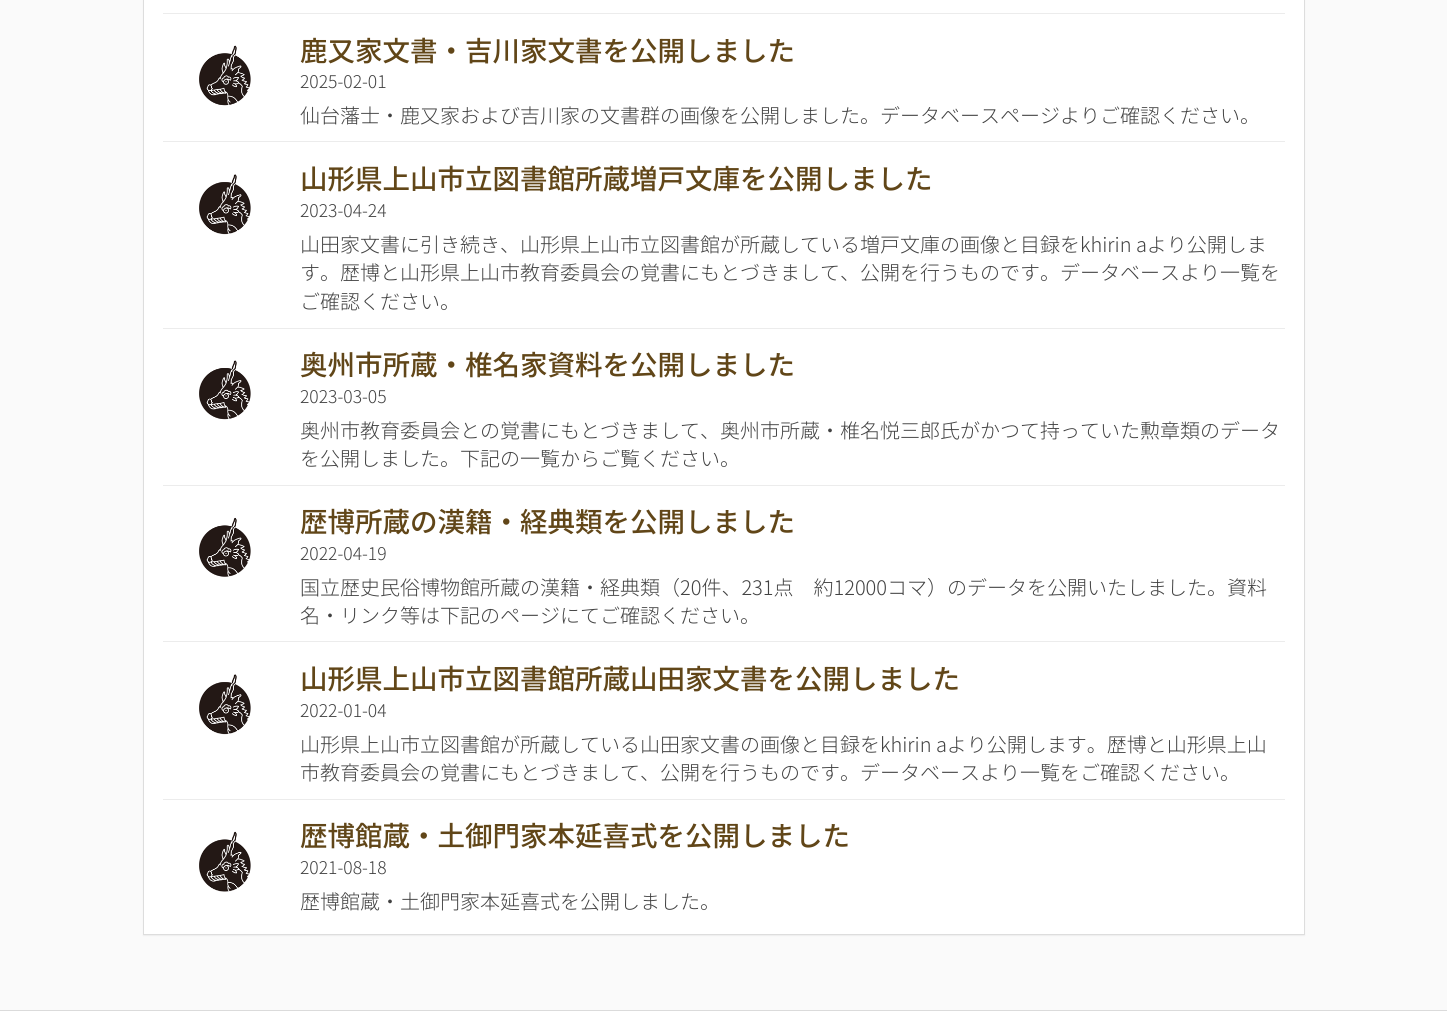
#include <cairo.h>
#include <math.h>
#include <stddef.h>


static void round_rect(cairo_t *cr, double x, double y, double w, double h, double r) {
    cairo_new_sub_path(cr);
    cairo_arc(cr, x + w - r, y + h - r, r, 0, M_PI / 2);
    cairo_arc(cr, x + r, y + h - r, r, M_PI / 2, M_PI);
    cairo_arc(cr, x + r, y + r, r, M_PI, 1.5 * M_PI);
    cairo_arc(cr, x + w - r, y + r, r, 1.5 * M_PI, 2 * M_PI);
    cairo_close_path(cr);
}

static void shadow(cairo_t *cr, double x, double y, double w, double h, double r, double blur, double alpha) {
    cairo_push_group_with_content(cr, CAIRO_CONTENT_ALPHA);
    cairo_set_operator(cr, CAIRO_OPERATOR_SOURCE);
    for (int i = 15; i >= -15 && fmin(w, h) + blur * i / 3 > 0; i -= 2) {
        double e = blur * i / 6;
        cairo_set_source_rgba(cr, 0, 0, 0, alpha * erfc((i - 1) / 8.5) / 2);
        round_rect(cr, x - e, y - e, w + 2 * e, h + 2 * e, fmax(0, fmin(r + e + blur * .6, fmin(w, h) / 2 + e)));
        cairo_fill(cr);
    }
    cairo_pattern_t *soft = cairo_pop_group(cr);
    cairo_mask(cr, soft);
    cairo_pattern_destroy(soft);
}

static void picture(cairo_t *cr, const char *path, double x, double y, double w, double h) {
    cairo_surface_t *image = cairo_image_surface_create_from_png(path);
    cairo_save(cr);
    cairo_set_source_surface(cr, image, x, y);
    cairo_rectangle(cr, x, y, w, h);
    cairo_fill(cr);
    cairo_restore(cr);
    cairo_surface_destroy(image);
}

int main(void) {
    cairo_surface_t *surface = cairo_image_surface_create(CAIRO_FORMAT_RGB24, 1447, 1023);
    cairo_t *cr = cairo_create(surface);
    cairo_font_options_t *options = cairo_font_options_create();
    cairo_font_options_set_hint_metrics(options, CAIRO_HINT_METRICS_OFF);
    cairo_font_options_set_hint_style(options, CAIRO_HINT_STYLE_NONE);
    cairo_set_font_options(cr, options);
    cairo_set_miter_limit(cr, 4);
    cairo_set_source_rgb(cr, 0.98, 0.98, 0.98);
    cairo_paint(cr);
    cairo_set_source_rgb(cr, 0, 0, 0);
    shadow(cr, 143, -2, 1162, 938, 0, 0.5, 0.05);
    cairo_set_source_rgb(cr, 1, 1, 1);
    cairo_rectangle(cr, 143.5, -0.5, 1161, 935);
    cairo_fill_preserve(cr);
    cairo_set_source_rgb(cr, 0.867, 0.867, 0.867);
    cairo_set_line_width(cr, 1);
    cairo_stroke(cr);
    cairo_set_source_rgb(cr, 0.925, 0.925, 0.925);
    cairo_rectangle(cr, 163, 13, 1122, 1);
    cairo_fill(cr);
    cairo_rectangle(cr, 163, 141, 1122, 1);
    cairo_fill(cr);
    picture(cr, "img1.png", 199, 45, 52, 61);
    cairo_select_font_face(cr, "Noto Sans JP Medium", CAIRO_FONT_SLANT_NORMAL, CAIRO_FONT_WEIGHT_NORMAL);
    cairo_set_font_size(cr, 27.5);
    cairo_set_source_rgb(cr, 0.38, 0.275, 0.094);
    cairo_move_to(cr, 300, 61);
    cairo_show_text(cr, "鹿又家文書・吉川家文書を公開しました");
    cairo_select_font_face(cr, "Noto Sans JP Light", CAIRO_FONT_SLANT_NORMAL, CAIRO_FONT_WEIGHT_NORMAL);
    cairo_set_font_size(cr, 17.5);
    cairo_set_source_rgb(cr, 0.259, 0.259, 0.259);
    cairo_move_to(cr, 300, 88);
    cairo_show_text(cr, "2025-02-01");
    cairo_set_font_size(cr, 20);
    cairo_move_to(cr, 300, 123);
    cairo_show_text(cr, "仙台藩士・鹿又家および吉川家の文書群の画像を公開しました。データベースページよりご確認ください。");
    cairo_set_source_rgb(cr, 0.925, 0.925, 0.925);
    cairo_rectangle(cr, 163, 328, 1122, 1);
    cairo_fill(cr);
    picture(cr, "img2.png", 199, 174, 52, 61);
    cairo_select_font_face(cr, "Noto Sans JP Medium", CAIRO_FONT_SLANT_NORMAL, CAIRO_FONT_WEIGHT_NORMAL);
    cairo_set_font_size(cr, 27.5);
    cairo_set_source_rgb(cr, 0.38, 0.275, 0.094);
    cairo_move_to(cr, 300, 189);
    cairo_show_text(cr, "山形県上山市立図書館所蔵増戸文庫を公開しました");
    cairo_select_font_face(cr, "Noto Sans JP Light", CAIRO_FONT_SLANT_NORMAL, CAIRO_FONT_WEIGHT_NORMAL);
    cairo_set_font_size(cr, 17.5);
    cairo_set_source_rgb(cr, 0.259, 0.259, 0.259);
    cairo_move_to(cr, 300, 217);
    cairo_show_text(cr, "2023-04-24");
    cairo_set_font_size(cr, 20);
    cairo_move_to(cr, 300, 252);
    cairo_show_text(cr, "山田家文書に引き続き、山形県上山市立図書館が所蔵している増戸文庫の画像と目録をkhirin aより公開しま");
    cairo_move_to(cr, 300, 280);
    cairo_show_text(cr, "す。歴博と山形県上山市教育委員会の覚書にもとづきまして、公開を行うものです。データベースより一覧を");
    cairo_move_to(cr, 300, 309);
    cairo_show_text(cr, "ご確認ください。");
    cairo_set_source_rgb(cr, 0.925, 0.925, 0.925);
    cairo_rectangle(cr, 163, 485, 1122, 1);
    cairo_fill(cr);
    picture(cr, "img3.png", 199, 360, 52, 60);
    cairo_select_font_face(cr, "Noto Sans JP Medium", CAIRO_FONT_SLANT_NORMAL, CAIRO_FONT_WEIGHT_NORMAL);
    cairo_set_font_size(cr, 27.5);
    cairo_set_source_rgb(cr, 0.38, 0.275, 0.094);
    cairo_move_to(cr, 300, 375);
    cairo_show_text(cr, "奥州市所蔵・椎名家資料を公開しました");
    cairo_select_font_face(cr, "Noto Sans JP Light", CAIRO_FONT_SLANT_NORMAL, CAIRO_FONT_WEIGHT_NORMAL);
    cairo_set_font_size(cr, 17.5);
    cairo_set_source_rgb(cr, 0.259, 0.259, 0.259);
    cairo_move_to(cr, 300, 403);
    cairo_show_text(cr, "2023-03-05");
    cairo_set_font_size(cr, 20);
    cairo_move_to(cr, 300, 438);
    cairo_show_text(cr, "奥州市教育委員会との覚書にもとづきまして、奥州市所蔵・椎名悦三郎氏がかつて持っていた勲章類のデータ");
    cairo_move_to(cr, 300, 466);
    cairo_show_text(cr, "を公開しました。下記の一覧からご覧ください。");
    cairo_set_source_rgb(cr, 0.925, 0.925, 0.925);
    cairo_rectangle(cr, 163, 641, 1122, 1);
    cairo_fill(cr);
    picture(cr, "img4.png", 199, 517, 52, 60);
    cairo_select_font_face(cr, "Noto Sans JP Medium", CAIRO_FONT_SLANT_NORMAL, CAIRO_FONT_WEIGHT_NORMAL);
    cairo_set_font_size(cr, 27.5);
    cairo_set_source_rgb(cr, 0.38, 0.275, 0.094);
    cairo_move_to(cr, 300, 532);
    cairo_show_text(cr, "歴博所蔵の漢籍・経典類を公開しました");
    cairo_select_font_face(cr, "Noto Sans JP Light", CAIRO_FONT_SLANT_NORMAL, CAIRO_FONT_WEIGHT_NORMAL);
    cairo_set_font_size(cr, 17.5);
    cairo_set_source_rgb(cr, 0.259, 0.259, 0.259);
    cairo_move_to(cr, 300, 560);
    cairo_show_text(cr, "2022-04-19");
    cairo_set_font_size(cr, 20);
    cairo_move_to(cr, 300, 595);
    cairo_show_text(cr, "国立歴史民俗博物館所蔵の漢籍・経典類（20件、231点　約12000コマ）のデータを公開いたしました。資料");
    cairo_move_to(cr, 300, 623);
    cairo_show_text(cr, "名・リンク等は下記のページにてご確認ください。");
    cairo_set_source_rgb(cr, 0.925, 0.925, 0.925);
    cairo_rectangle(cr, 163, 799, 1122, 1);
    cairo_fill(cr);
    picture(cr, "img2.png", 199, 674, 52, 61);
    cairo_select_font_face(cr, "Noto Sans JP Medium", CAIRO_FONT_SLANT_NORMAL, CAIRO_FONT_WEIGHT_NORMAL);
    cairo_set_font_size(cr, 27.5);
    cairo_set_source_rgb(cr, 0.38, 0.275, 0.094);
    cairo_move_to(cr, 300, 689);
    cairo_show_text(cr, "山形県上山市立図書館所蔵山田家文書を公開しました");
    cairo_select_font_face(cr, "Noto Sans JP Light", CAIRO_FONT_SLANT_NORMAL, CAIRO_FONT_WEIGHT_NORMAL);
    cairo_set_font_size(cr, 17.5);
    cairo_set_source_rgb(cr, 0.259, 0.259, 0.259);
    cairo_move_to(cr, 300, 717);
    cairo_show_text(cr, "2022-01-04");
    cairo_set_font_size(cr, 20);
    cairo_move_to(cr, 300, 752);
    cairo_show_text(cr, "山形県上山市立図書館が所蔵している山田家文書の画像と目録をkhirin aより公開します。歴博と山形県上山");
    cairo_move_to(cr, 300, 780);
    cairo_show_text(cr, "市教育委員会の覚書にもとづきまして、公開を行うものです。データベースより一覧をご確認ください。");
    picture(cr, "img5.png", 199, 831, 52, 61);
    cairo_select_font_face(cr, "Noto Sans JP Medium", CAIRO_FONT_SLANT_NORMAL, CAIRO_FONT_WEIGHT_NORMAL);
    cairo_set_font_size(cr, 27.5);
    cairo_set_source_rgb(cr, 0.38, 0.275, 0.094);
    cairo_move_to(cr, 300, 846);
    cairo_show_text(cr, "歴博館蔵・土御門家本延喜式を公開しました");
    cairo_select_font_face(cr, "Noto Sans JP Light", CAIRO_FONT_SLANT_NORMAL, CAIRO_FONT_WEIGHT_NORMAL);
    cairo_set_font_size(cr, 17.5);
    cairo_set_source_rgb(cr, 0.259, 0.259, 0.259);
    cairo_move_to(cr, 300, 874);
    cairo_show_text(cr, "2021-08-18");
    cairo_set_font_size(cr, 20);
    cairo_move_to(cr, 300, 909);
    cairo_show_text(cr, "歴博館蔵・土御門家本延喜式を公開しました。");
    cairo_set_source_rgb(cr, 1, 1, 1);
    cairo_rectangle(cr, 0, 1011, 1447, 12);
    cairo_fill(cr);
    cairo_set_source_rgb(cr, 0.859, 0.859, 0.859);
    cairo_rectangle(cr, 0, 1010, 1447, 1);
    cairo_fill(cr);
    cairo_surface_write_to_png(surface, "page.png");
    cairo_font_options_destroy(options);
    cairo_destroy(cr);
    cairo_surface_destroy(surface);
    return 0;
}
